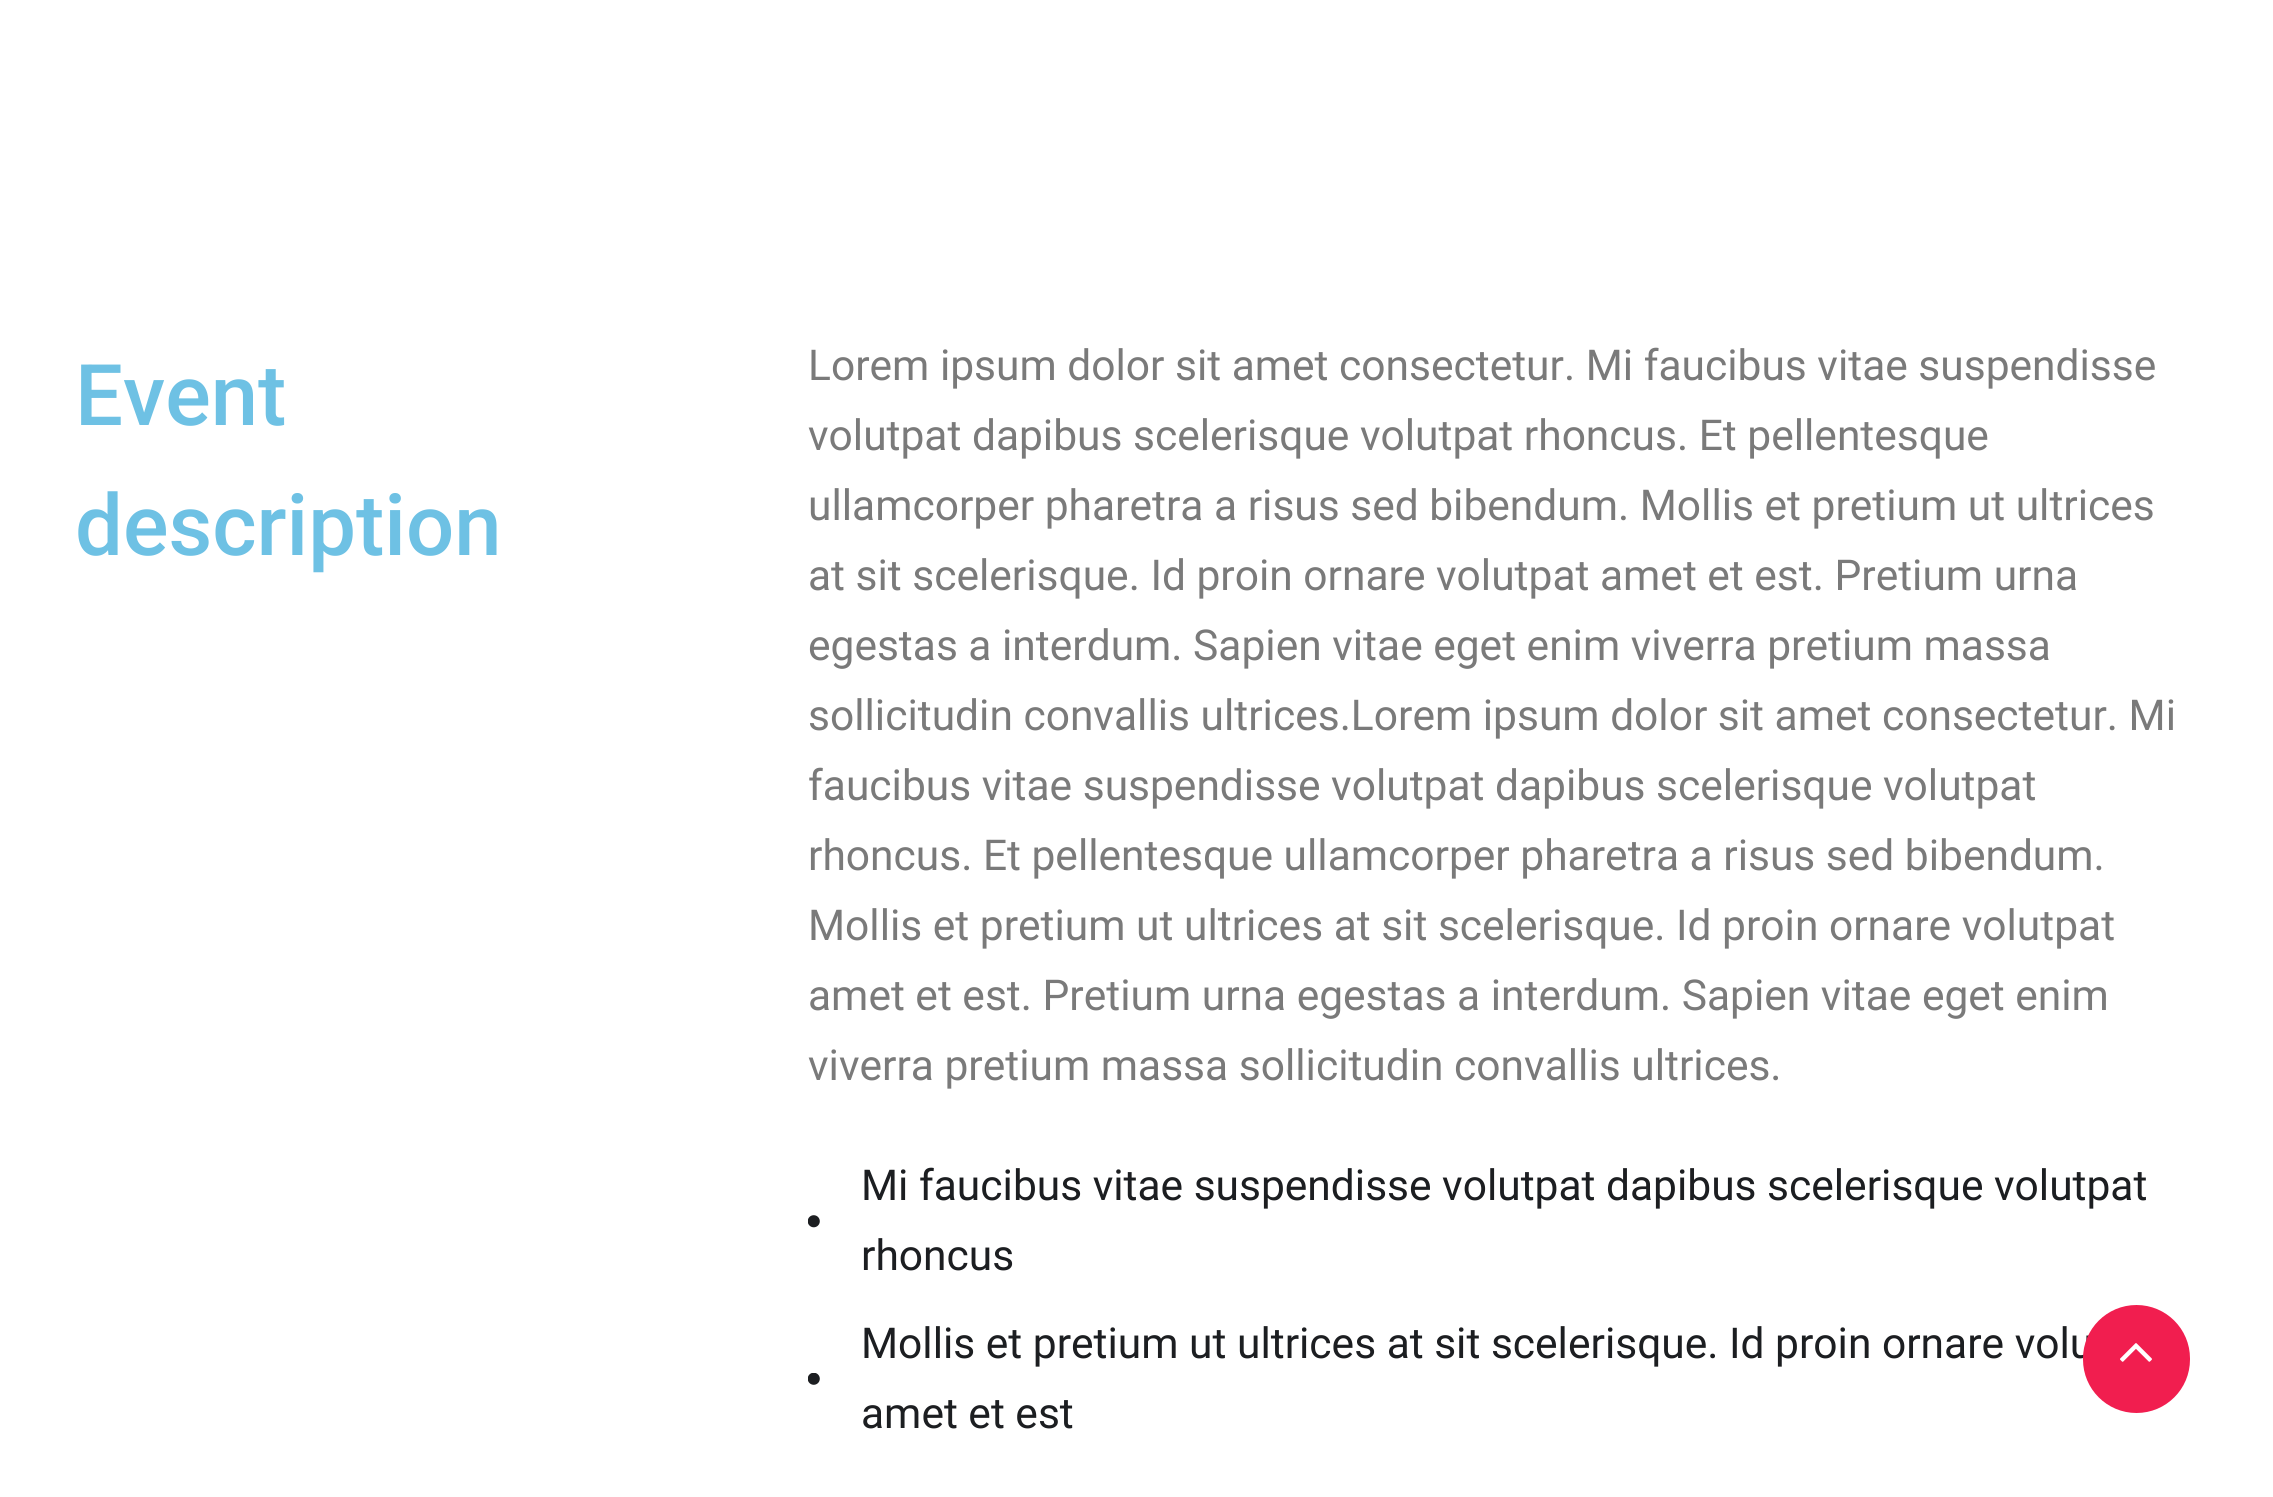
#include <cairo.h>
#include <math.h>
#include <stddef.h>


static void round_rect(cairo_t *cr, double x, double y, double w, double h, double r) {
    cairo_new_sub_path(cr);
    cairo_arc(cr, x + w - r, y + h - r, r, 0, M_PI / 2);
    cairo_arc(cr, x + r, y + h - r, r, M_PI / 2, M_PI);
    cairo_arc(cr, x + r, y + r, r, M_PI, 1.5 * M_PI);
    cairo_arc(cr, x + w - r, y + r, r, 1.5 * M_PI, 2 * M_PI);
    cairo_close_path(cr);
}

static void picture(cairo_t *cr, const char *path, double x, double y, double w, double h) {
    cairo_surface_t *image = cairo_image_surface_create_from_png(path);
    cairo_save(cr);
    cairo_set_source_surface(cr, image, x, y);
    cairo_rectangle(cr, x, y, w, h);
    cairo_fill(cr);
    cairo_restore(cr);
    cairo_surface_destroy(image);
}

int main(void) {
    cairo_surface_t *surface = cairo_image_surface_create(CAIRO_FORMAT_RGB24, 2273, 1497);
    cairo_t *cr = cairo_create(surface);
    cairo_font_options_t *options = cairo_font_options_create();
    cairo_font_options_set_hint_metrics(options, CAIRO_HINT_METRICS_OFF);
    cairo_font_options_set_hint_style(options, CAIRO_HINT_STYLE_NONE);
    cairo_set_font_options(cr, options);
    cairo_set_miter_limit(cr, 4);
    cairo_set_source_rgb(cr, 1, 1, 1);
    cairo_paint(cr);
    cairo_select_font_face(cr, "Roboto Medium", CAIRO_FONT_SLANT_NORMAL, CAIRO_FONT_WEIGHT_NORMAL);
    cairo_set_font_size(cr, 85);
    cairo_set_source_rgb(cr, 0.431, 0.757, 0.894);
    cairo_move_to(cr, 75, 425);
    cairo_show_text(cr, "Event");
    cairo_move_to(cr, 75, 555);
    cairo_show_text(cr, "description");
    cairo_select_font_face(cr, "Roboto", CAIRO_FONT_SLANT_NORMAL, CAIRO_FONT_WEIGHT_NORMAL);
    cairo_set_font_size(cr, 42.5);
    cairo_set_source_rgb(cr, 0.478, 0.478, 0.478);
    cairo_move_to(cr, 808, 380);
    cairo_show_text(cr, "Lorem ipsum dolor sit amet consectetur. Mi faucibus vitae suspendisse");
    cairo_move_to(cr, 808, 450);
    cairo_show_text(cr, "volutpat dapibus scelerisque volutpat rhoncus. Et pellentesque");
    cairo_move_to(cr, 808, 520);
    cairo_show_text(cr, "ullamcorper pharetra a risus sed bibendum. Mollis et pretium ut ultrices");
    cairo_move_to(cr, 808, 590);
    cairo_show_text(cr, "at sit scelerisque. Id proin ornare volutpat amet et est. Pretium urna");
    cairo_move_to(cr, 808, 660);
    cairo_show_text(cr, "egestas a interdum. Sapien vitae eget enim viverra pretium massa");
    cairo_move_to(cr, 808, 730);
    cairo_show_text(cr, "sollicitudin convallis ultrices.Lorem ipsum dolor sit amet consectetur. Mi");
    cairo_move_to(cr, 808, 800);
    cairo_show_text(cr, "faucibus vitae suspendisse volutpat dapibus scelerisque volutpat");
    cairo_move_to(cr, 808, 870);
    cairo_show_text(cr, "rhoncus. Et pellentesque ullamcorper pharetra a risus sed bibendum.");
    cairo_move_to(cr, 808, 940);
    cairo_show_text(cr, "Mollis et pretium ut ultrices at sit scelerisque. Id proin ornare volutpat");
    cairo_move_to(cr, 808, 1010);
    cairo_show_text(cr, "amet et est. Pretium urna egestas a interdum. Sapien vitae eget enim");
    cairo_move_to(cr, 808, 1080);
    cairo_show_text(cr, "viverra pretium massa sollicitudin convallis ultrices.");
    picture(cr, "img1.png", 808, 1215, 12, 13);
    cairo_set_source_rgb(cr, 0.11, 0.118, 0.129);
    cairo_move_to(cr, 861, 1200);
    cairo_show_text(cr, "Mi faucibus vitae suspendisse volutpat dapibus scelerisque volutpat");
    cairo_move_to(cr, 861, 1270);
    cairo_show_text(cr, "rhoncus");
    picture(cr, "img2.png", 808, 1373, 12, 12);
    cairo_move_to(cr, 861, 1358);
    cairo_show_text(cr, "Mollis et pretium ut ultrices at sit scelerisque. Id proin ornare volu");
    cairo_move_to(cr, 861, 1428);
    cairo_show_text(cr, "amet et est");
    cairo_set_source_rgb(cr, 0.945, 0.118, 0.31);
    round_rect(cr, 2083, 1305, 107, 108, 53.5);
    cairo_fill(cr);
    picture(cr, "img3.png", 2120, 1343, 32, 19);
    cairo_surface_write_to_png(surface, "page.png");
    cairo_font_options_destroy(options);
    cairo_destroy(cr);
    cairo_surface_destroy(surface);
    return 0;
}
